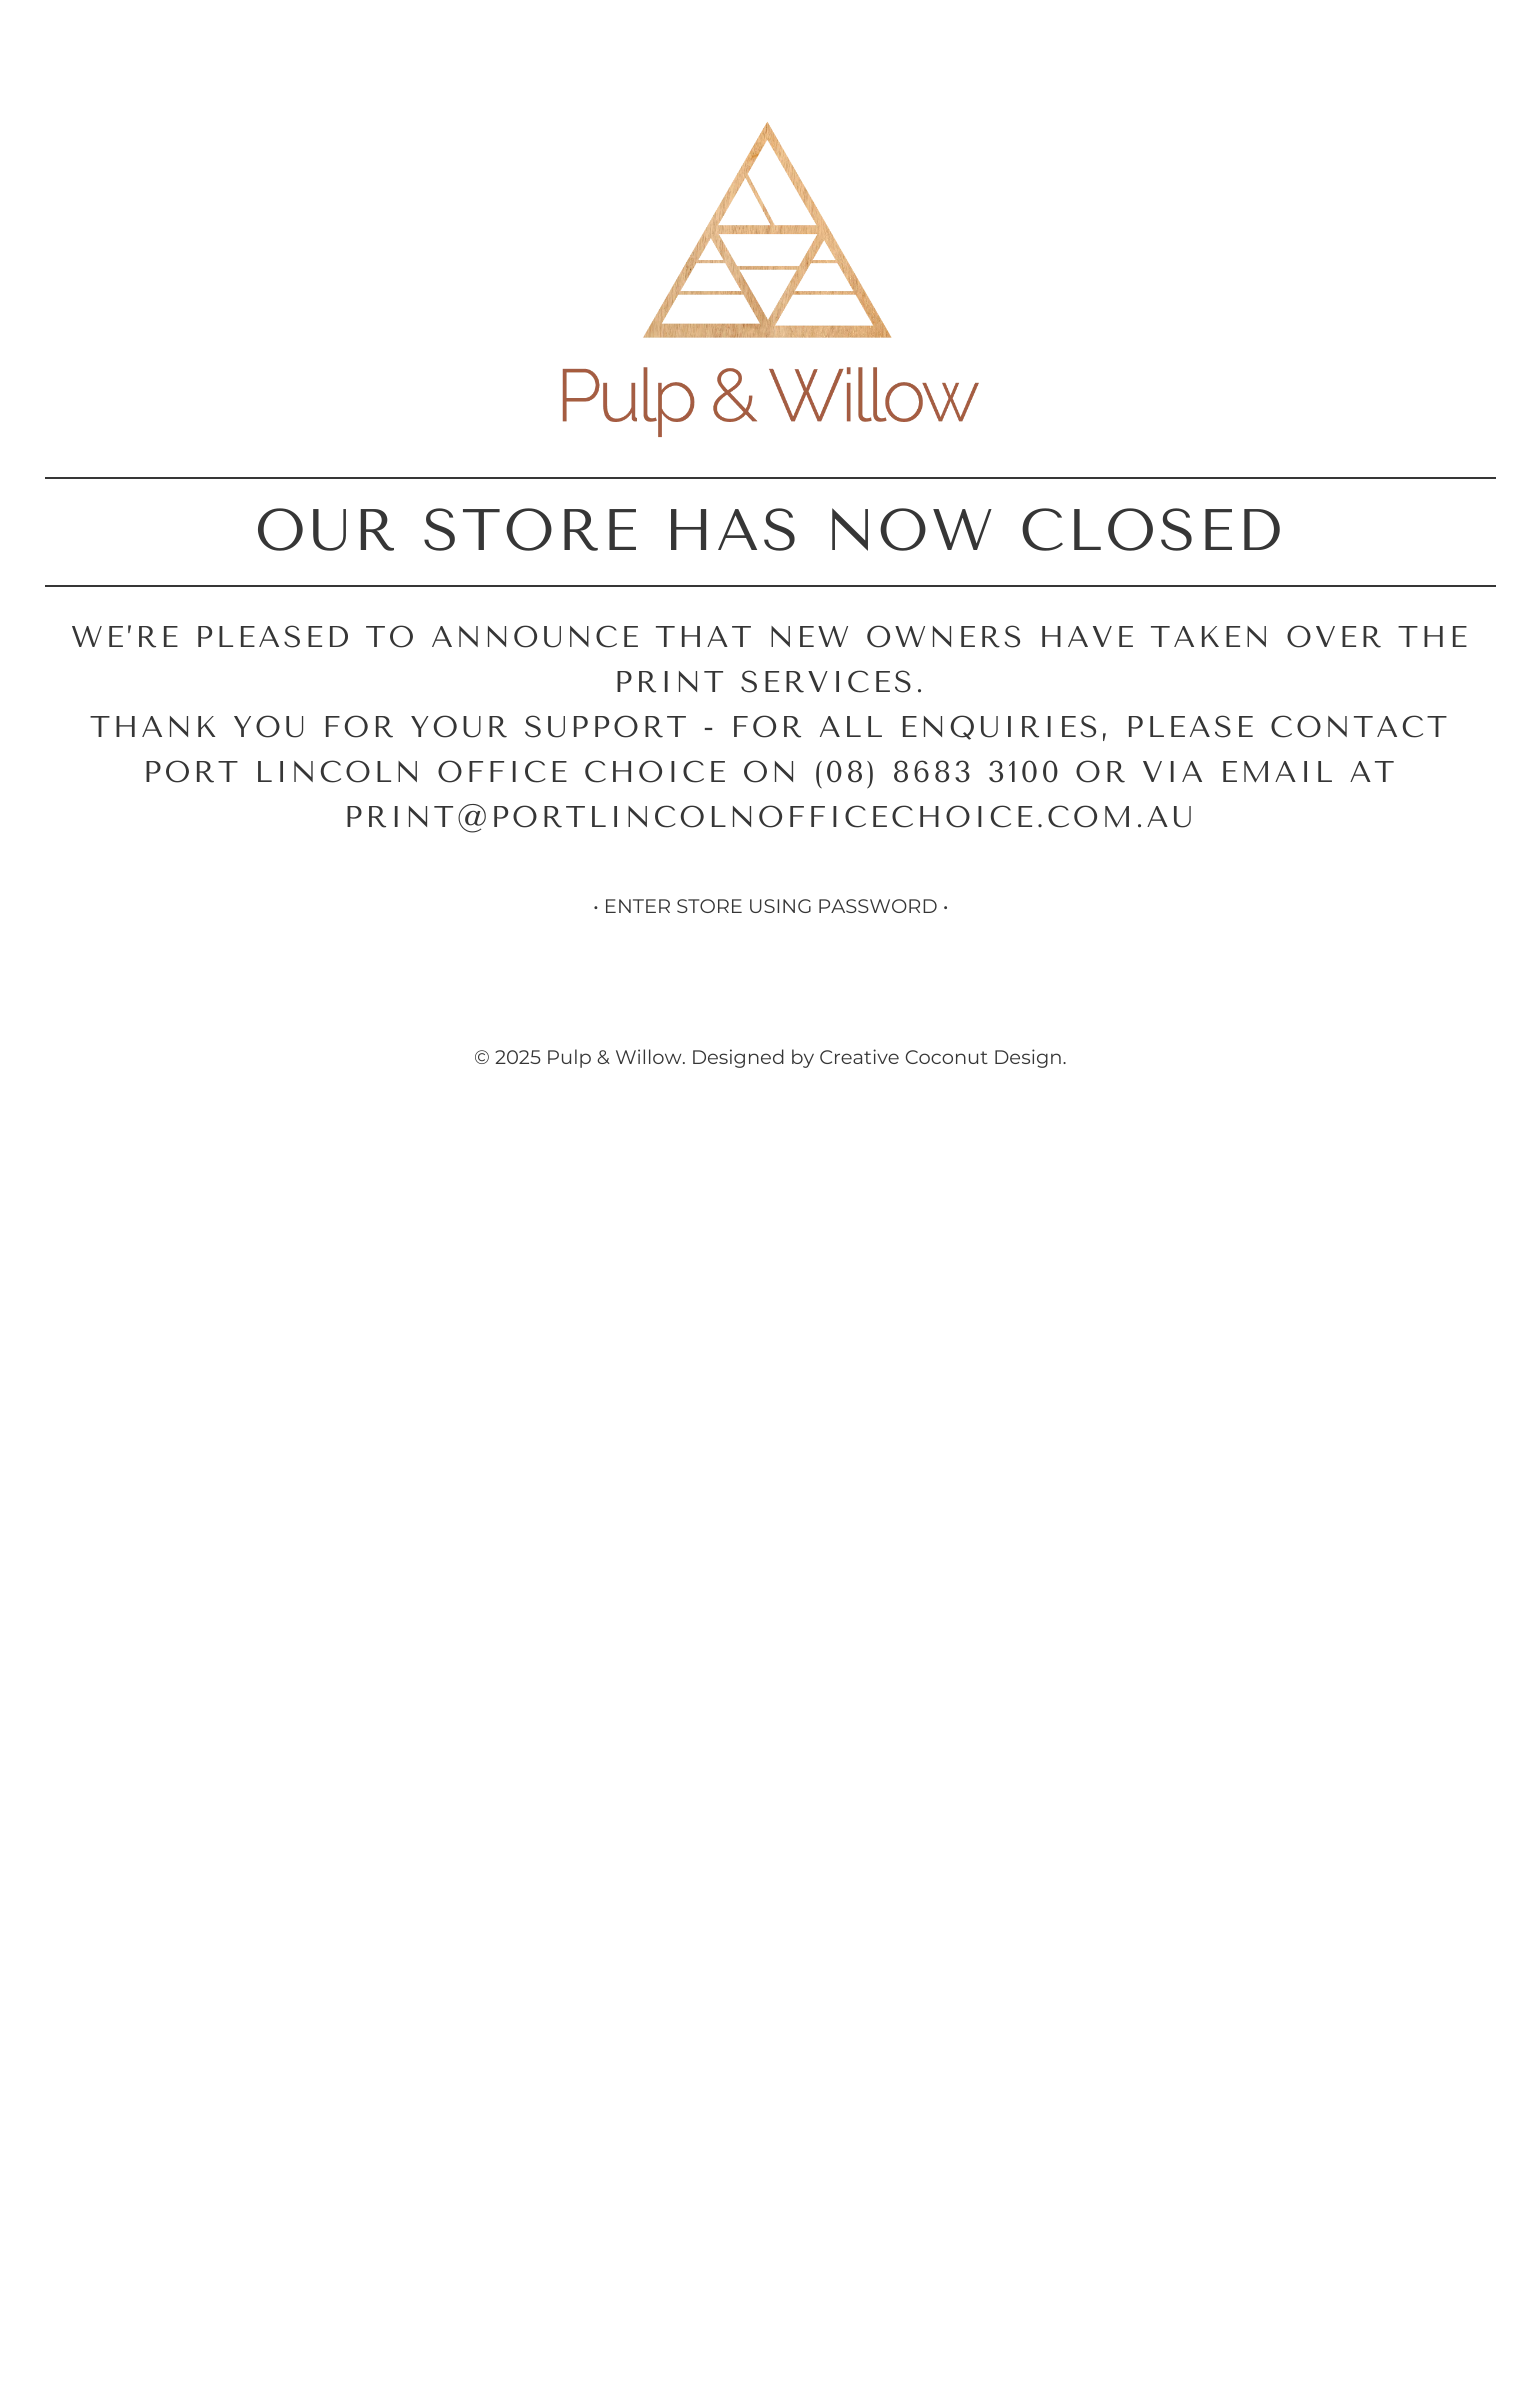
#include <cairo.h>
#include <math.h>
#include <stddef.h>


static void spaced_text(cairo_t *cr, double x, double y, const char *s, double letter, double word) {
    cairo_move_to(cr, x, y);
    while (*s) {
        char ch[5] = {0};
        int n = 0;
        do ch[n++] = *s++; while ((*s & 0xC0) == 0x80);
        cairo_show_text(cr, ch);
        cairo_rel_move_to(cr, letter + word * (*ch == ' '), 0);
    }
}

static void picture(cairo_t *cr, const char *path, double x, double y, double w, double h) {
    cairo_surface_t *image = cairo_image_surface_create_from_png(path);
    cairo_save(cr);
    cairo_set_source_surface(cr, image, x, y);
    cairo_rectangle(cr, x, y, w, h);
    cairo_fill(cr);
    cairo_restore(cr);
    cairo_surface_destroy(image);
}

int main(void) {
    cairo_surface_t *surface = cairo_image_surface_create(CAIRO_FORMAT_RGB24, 1540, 2397);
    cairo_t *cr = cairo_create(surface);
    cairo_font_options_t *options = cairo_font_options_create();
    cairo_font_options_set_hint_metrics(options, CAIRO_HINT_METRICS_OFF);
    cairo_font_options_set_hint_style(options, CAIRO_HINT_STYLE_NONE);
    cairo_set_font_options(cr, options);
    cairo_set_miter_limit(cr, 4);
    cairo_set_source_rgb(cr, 1, 1, 1);
    cairo_paint(cr);
    picture(cr, "img1.png", 562, 121, 417, 317);
    cairo_set_source_rgb(cr, 0.212, 0.212, 0.212);
    cairo_rectangle(cr, 45, 477, 1451, 2);
    cairo_fill(cr);
    cairo_rectangle(cr, 45, 585, 1451, 2);
    cairo_fill(cr);
    cairo_select_font_face(cr, "Tenor Sans", CAIRO_FONT_SLANT_NORMAL, CAIRO_FONT_WEIGHT_NORMAL);
    cairo_set_font_size(cr, 58.5);
    spaced_text(cr, 255, 550, "OUR STORE HAS NOW CLOSED", 3, 0);
    cairo_set_font_size(cr, 30);
    spaced_text(cr, 71, 647, "WE’RE PLEASED TO ANNOUNCE THAT NEW OWNERS HAVE TAKEN OVER THE", 3, 0);
    spaced_text(cr, 614, 692, "PRINT SERVICES.", 3, 0);
    spaced_text(cr, 90, 737, "THANK YOU FOR YOUR SUPPORT - FOR ALL ENQUIRIES, PLEASE CONTACT", 3, 0);
    spaced_text(cr, 143, 782, "PORT LINCOLN OFFICE CHOICE ON (08) 8683 3100", 3, 0);
    spaced_text(cr, 1075, 782, "OR VIA EMAIL AT", 3, 0);
    spaced_text(cr, 344, 827, "PRINT@PORTLINCOLNOFFICECHOICE.COM.AU", 3, 0);
    cairo_select_font_face(cr, "Montserrat", CAIRO_FONT_SLANT_NORMAL, CAIRO_FONT_WEIGHT_NORMAL);
    cairo_set_font_size(cr, 19.5);
    cairo_move_to(cr, 593, 913);
    cairo_show_text(cr, "• ENTER STORE USING PASSWORD •");
    cairo_move_to(cr, 474, 1064);
    cairo_show_text(cr, "© 2025 Pulp & Willow. Designed by Creative Coconut Design.");
    cairo_surface_write_to_png(surface, "page.png");
    cairo_font_options_destroy(options);
    cairo_destroy(cr);
    cairo_surface_destroy(surface);
    return 0;
}
